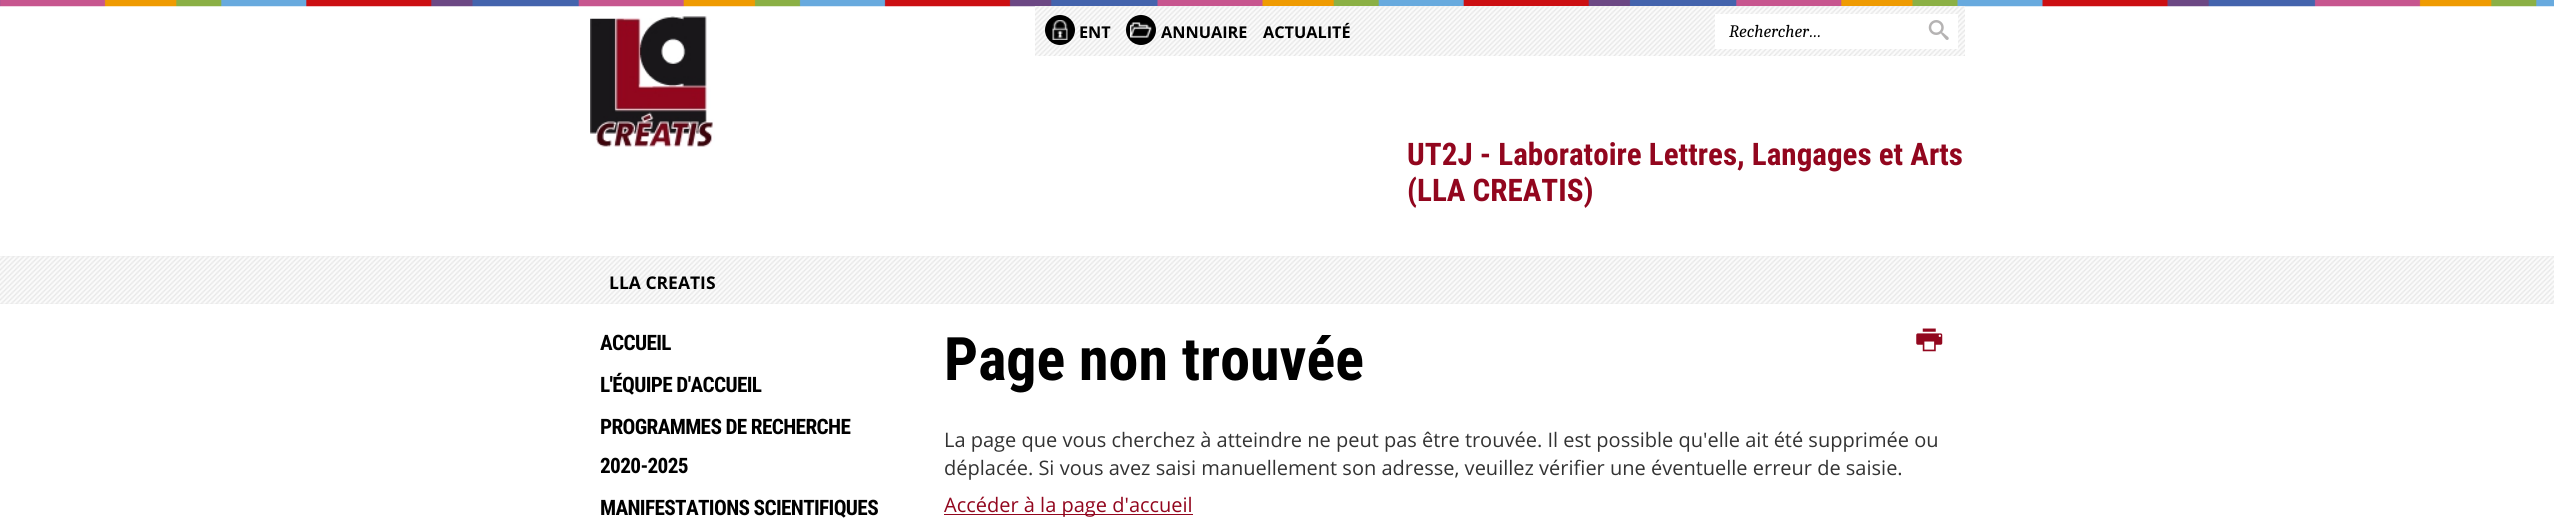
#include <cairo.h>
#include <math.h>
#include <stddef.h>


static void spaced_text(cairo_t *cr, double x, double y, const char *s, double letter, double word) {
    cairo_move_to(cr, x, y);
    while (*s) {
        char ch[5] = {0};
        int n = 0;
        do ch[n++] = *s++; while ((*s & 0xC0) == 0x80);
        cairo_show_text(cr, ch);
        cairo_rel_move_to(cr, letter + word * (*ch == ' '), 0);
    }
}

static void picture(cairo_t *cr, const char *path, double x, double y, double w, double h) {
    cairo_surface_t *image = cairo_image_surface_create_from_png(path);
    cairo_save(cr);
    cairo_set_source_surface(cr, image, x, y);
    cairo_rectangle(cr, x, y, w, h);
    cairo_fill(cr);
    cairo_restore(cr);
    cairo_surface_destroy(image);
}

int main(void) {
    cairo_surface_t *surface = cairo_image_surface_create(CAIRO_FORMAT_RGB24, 2554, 518);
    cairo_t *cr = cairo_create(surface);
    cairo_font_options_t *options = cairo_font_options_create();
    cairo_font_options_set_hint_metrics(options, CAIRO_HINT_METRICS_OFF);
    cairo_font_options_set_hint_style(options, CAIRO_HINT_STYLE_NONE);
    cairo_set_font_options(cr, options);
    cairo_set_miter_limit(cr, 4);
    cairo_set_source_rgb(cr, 1, 1, 1);
    cairo_paint(cr);
    picture(cr, "img1.png", 0, 0, 2554, 7);
    picture(cr, "img2.png", 590, 16, 125, 131);
    cairo_set_source_rgb(cr, 0.898, 0.898, 0.898);
    cairo_rectangle(cr, 1035, 6, 930, 50);
    cairo_fill(cr);
    picture(cr, "img3.png", 1035, 6, 930, 50);
    cairo_set_source_rgb(cr, 0, 0, 0);
    cairo_arc(cr, 1060, 30, 15, 0, 2 * M_PI);
    cairo_fill(cr);
    picture(cr, "img4.png", 1052, 20, 16, 20);
    cairo_select_font_face(cr, "Open Sans", CAIRO_FONT_SLANT_NORMAL, CAIRO_FONT_WEIGHT_BOLD);
    cairo_set_font_size(cr, 16.25);
    cairo_move_to(cr, 1079, 38);
    cairo_show_text(cr, "ENT");
    cairo_new_path(cr);
    cairo_arc(cr, 1141, 30, 15, 0, 2 * M_PI);
    cairo_fill(cr);
    picture(cr, "img5.png", 1130, 22, 22, 16);
    cairo_move_to(cr, 1161, 38);
    cairo_show_text(cr, "ANNUAIRE");
    cairo_move_to(cr, 1263, 38);
    cairo_show_text(cr, "ACTUALITÉ");
    cairo_set_source_rgb(cr, 1, 1, 1);
    cairo_rectangle(cr, 1715, 14, 243, 35);
    cairo_fill(cr);
    cairo_select_font_face(cr, "Caladea", CAIRO_FONT_SLANT_ITALIC, CAIRO_FONT_WEIGHT_NORMAL);
    cairo_set_font_size(cr, 17.5);
    cairo_set_source_rgb(cr, 0, 0, 0);
    cairo_move_to(cr, 1729, 37);
    cairo_show_text(cr, "Rechercher…");
    picture(cr, "img6.png", 1928, 20, 21, 20);
    cairo_select_font_face(cr, "Roboto Condensed", CAIRO_FONT_SLANT_NORMAL, CAIRO_FONT_WEIGHT_BOLD);
    cairo_set_font_size(cr, 31.1);
    cairo_set_source_rgb(cr, 0.573, 0.027, 0.118);
    cairo_move_to(cr, 1407, 165);
    cairo_show_text(cr, "UT2J - Laboratoire Lettres, Langages et Arts");
    cairo_move_to(cr, 1407, 201);
    cairo_show_text(cr, "(LLA CREATIS)");
    cairo_set_source_rgb(cr, 0.898, 0.898, 0.898);
    cairo_rectangle(cr, 0, 256, 2554, 48);
    cairo_fill(cr);
    picture(cr, "img7.png", 0, 256, 2554, 48);
    cairo_select_font_face(cr, "Open Sans", CAIRO_FONT_SLANT_NORMAL, CAIRO_FONT_WEIGHT_BOLD);
    cairo_set_font_size(cr, 17.5);
    cairo_set_source_rgb(cr, 0, 0, 0);
    cairo_move_to(cr, 609, 289);
    cairo_show_text(cr, "LLA CREATIS");
    cairo_select_font_face(cr, "Roboto Condensed", CAIRO_FONT_SLANT_NORMAL, CAIRO_FONT_WEIGHT_BOLD);
    cairo_set_font_size(cr, 21.25);
    spaced_text(cr, 600, 350, "ACCUEIL", -0.65, 0);
    spaced_text(cr, 600, 392, "L'ÉQUIPE D'ACCUEIL", -0.65, 0);
    spaced_text(cr, 600, 434, "PROGRAMMES DE RECHERCHE", -0.65, 0);
    spaced_text(cr, 600, 473, "2020-2025", -0.65, 0);
    spaced_text(cr, 600, 515, "MANIFESTATIONS SCIENTIFIQUES", -0.65, 0);
    cairo_set_font_size(cr, 60);
    cairo_move_to(cr, 944, 380);
    cairo_show_text(cr, "Page non trouvée");
    picture(cr, "img8.png", 1916, 328, 27, 24);
    cairo_select_font_face(cr, "Open Sans", CAIRO_FONT_SLANT_NORMAL, CAIRO_FONT_WEIGHT_NORMAL);
    cairo_set_font_size(cr, 20);
    cairo_set_source_rgb(cr, 0.2, 0.2, 0.2);
    cairo_move_to(cr, 944, 447);
    cairo_show_text(cr, "La page que vous cherchez à atteindre ne peut pas être trouvée. Il est possible qu'elle ait été supprimée ou");
    cairo_move_to(cr, 944, 475);
    cairo_show_text(cr, "déplacée. Si vous avez saisi manuellement son adresse, veuillez vérifier une éventuelle erreur de saisie.");
    cairo_set_source_rgb(cr, 0.573, 0.027, 0.118);
    cairo_rectangle(cr, 944, 514, 249, 1);
    cairo_fill(cr);
    cairo_move_to(cr, 944, 512);
    cairo_show_text(cr, "Accéder à la page d'accueil");
    cairo_surface_write_to_png(surface, "page.png");
    cairo_font_options_destroy(options);
    cairo_destroy(cr);
    cairo_surface_destroy(surface);
    return 0;
}
